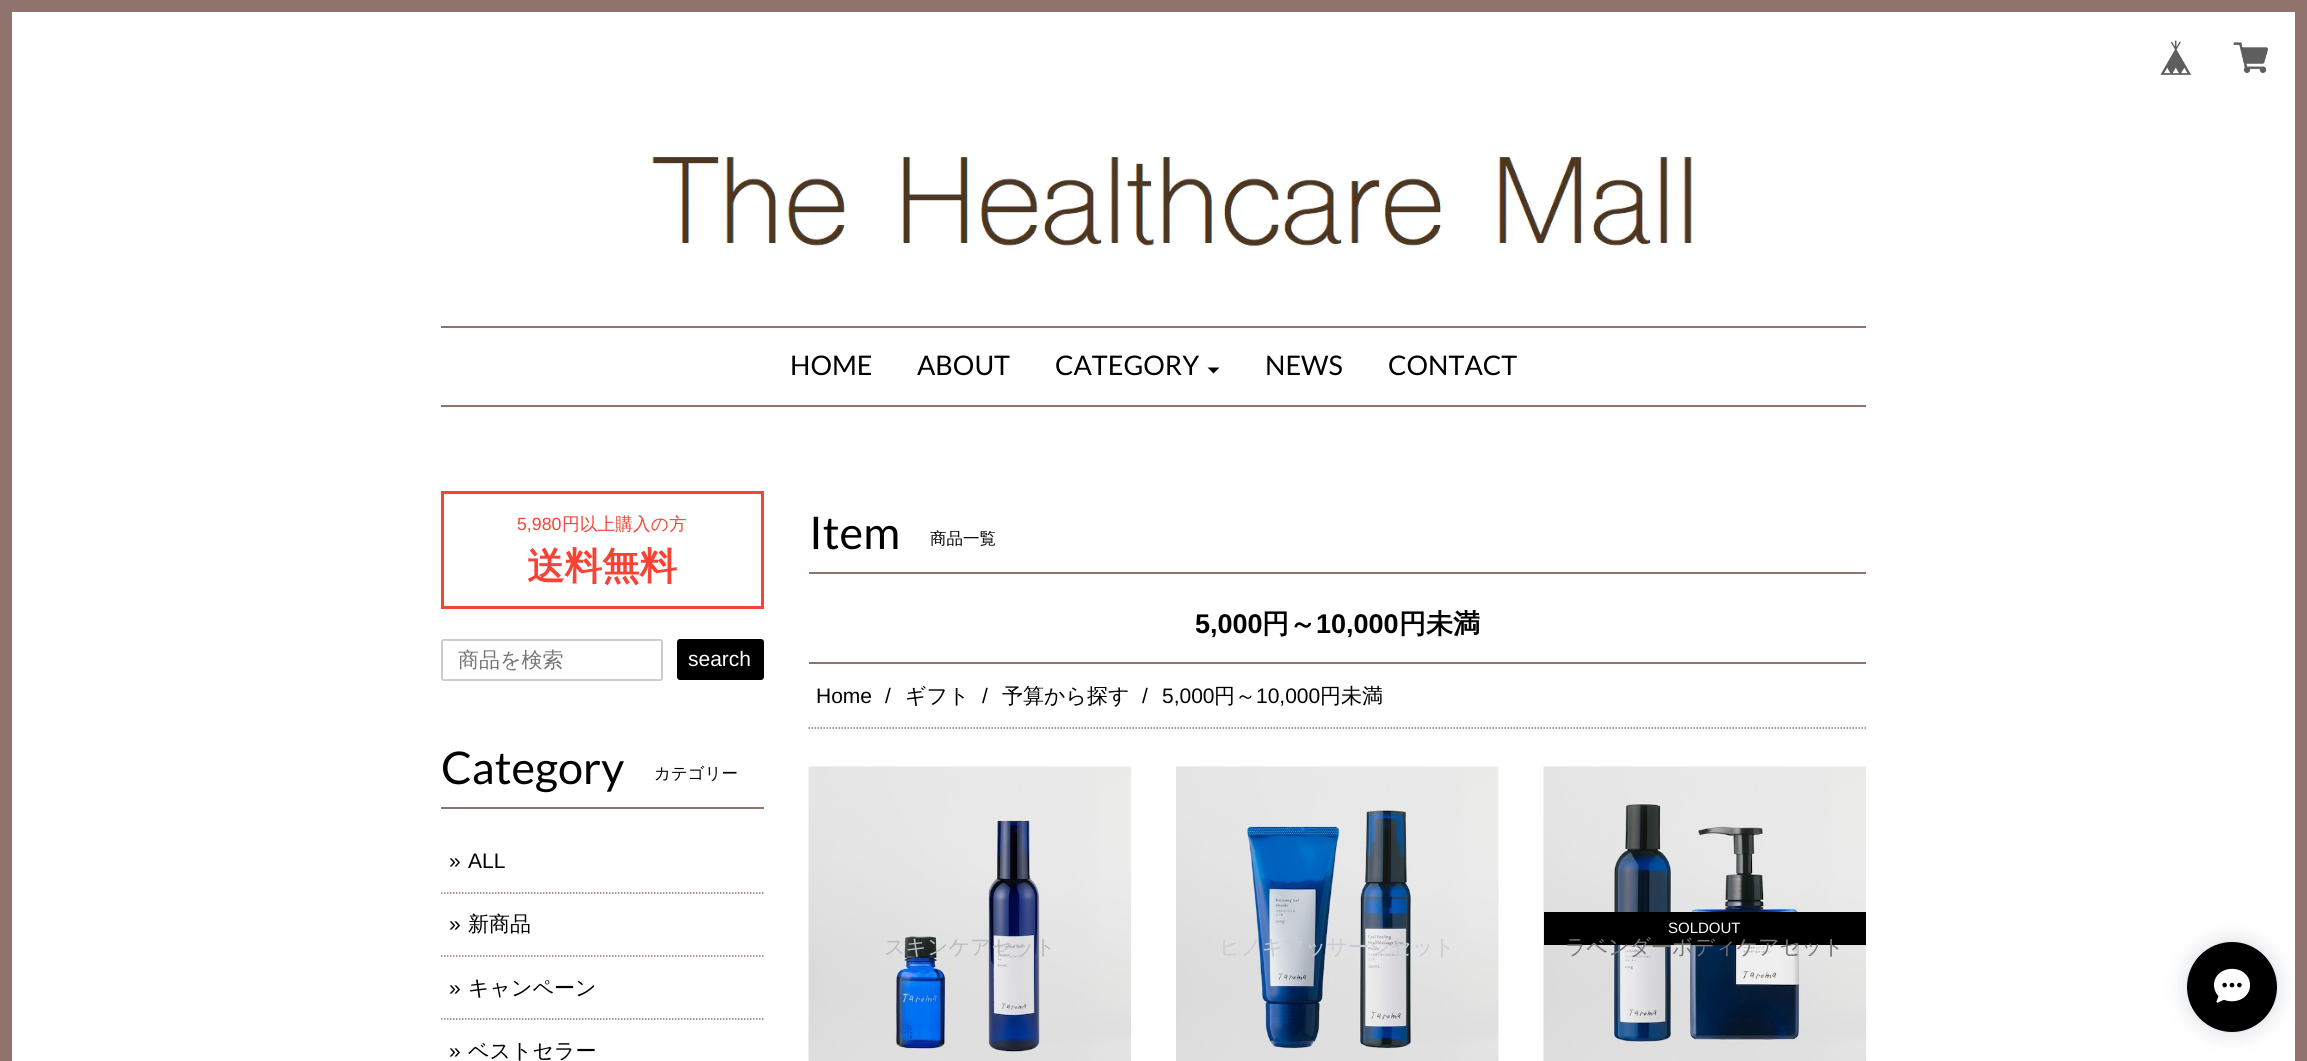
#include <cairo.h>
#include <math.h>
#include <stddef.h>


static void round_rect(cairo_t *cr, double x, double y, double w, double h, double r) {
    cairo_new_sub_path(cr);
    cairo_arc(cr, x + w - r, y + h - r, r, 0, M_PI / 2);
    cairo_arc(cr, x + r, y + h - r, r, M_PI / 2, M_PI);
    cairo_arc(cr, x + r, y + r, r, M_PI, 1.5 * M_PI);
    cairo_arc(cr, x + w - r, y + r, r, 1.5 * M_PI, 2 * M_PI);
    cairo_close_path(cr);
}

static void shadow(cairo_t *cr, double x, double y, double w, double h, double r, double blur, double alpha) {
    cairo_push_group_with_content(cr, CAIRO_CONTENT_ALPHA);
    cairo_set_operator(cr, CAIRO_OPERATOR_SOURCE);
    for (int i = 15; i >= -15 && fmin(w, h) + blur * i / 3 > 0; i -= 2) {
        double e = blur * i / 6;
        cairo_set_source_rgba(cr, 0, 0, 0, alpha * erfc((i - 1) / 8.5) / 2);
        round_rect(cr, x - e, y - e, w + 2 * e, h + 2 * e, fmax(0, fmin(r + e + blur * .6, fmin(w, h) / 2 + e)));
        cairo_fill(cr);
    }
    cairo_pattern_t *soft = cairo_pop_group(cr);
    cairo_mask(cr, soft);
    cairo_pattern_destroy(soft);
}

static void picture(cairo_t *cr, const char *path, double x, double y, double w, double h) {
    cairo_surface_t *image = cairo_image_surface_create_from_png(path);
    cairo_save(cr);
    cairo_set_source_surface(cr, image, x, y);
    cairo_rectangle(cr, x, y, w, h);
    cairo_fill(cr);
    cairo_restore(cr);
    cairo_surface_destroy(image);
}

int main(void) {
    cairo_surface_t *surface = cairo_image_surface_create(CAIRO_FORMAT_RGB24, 2307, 1061);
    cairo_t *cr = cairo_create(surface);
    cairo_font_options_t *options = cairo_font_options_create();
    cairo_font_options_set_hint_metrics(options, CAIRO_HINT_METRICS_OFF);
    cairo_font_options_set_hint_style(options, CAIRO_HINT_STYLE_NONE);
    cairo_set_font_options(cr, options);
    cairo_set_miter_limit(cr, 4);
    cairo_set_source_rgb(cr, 1, 1, 1);
    cairo_paint(cr);
    cairo_rectangle(cr, 6, 6, 2295, 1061);
    cairo_set_source_rgb(cr, 0.565, 0.451, 0.427);
    cairo_set_line_width(cr, 12);
    cairo_stroke(cr);
    picture(cr, "img1.png", 2160, 40, 32, 35);
    picture(cr, "img2.png", 2233, 42, 35, 32);
    picture(cr, "img3.png", 647, 153, 1047, 96);
    cairo_rectangle(cr, 441, 326, 1425, 2);
    cairo_fill(cr);
    cairo_rectangle(cr, 441, 405, 1425, 2);
    cairo_fill(cr);
    cairo_select_font_face(cr, "Lato", CAIRO_FONT_SLANT_NORMAL, CAIRO_FONT_WEIGHT_NORMAL);
    cairo_set_font_size(cr, 27);
    cairo_set_source_rgb(cr, 0, 0, 0);
    cairo_move_to(cr, 790, 375);
    cairo_show_text(cr, "HOME");
    cairo_move_to(cr, 917, 375);
    cairo_show_text(cr, "ABOUT");
    cairo_move_to(cr, 1055, 375);
    cairo_show_text(cr, "CATEGORY");
    cairo_new_path(cr);
    cairo_move_to(cr, 1207.5, 367.5);
    cairo_line_to(cr, 1219.5, 367.5);
    cairo_line_to(cr, 1213.5, 373.5);
    cairo_close_path(cr);
    cairo_fill(cr);
    cairo_move_to(cr, 1265, 375);
    cairo_show_text(cr, "NEWS");
    cairo_move_to(cr, 1388, 375);
    cairo_show_text(cr, "CONTACT");
    cairo_rectangle(cr, 442.5, 492.5, 320, 115);
    cairo_set_source_rgb(cr, 0.961, 0.263, 0.212);
    cairo_set_line_width(cr, 3);
    cairo_stroke(cr);
    cairo_select_font_face(cr, "Liberation Sans", CAIRO_FONT_SLANT_NORMAL, CAIRO_FONT_WEIGHT_NORMAL);
    cairo_set_font_size(cr, 17.75);
    cairo_move_to(cr, 517, 530);
    cairo_show_text(cr, "5,980");
    cairo_select_font_face(cr, "WenQuanYi Zen Hei Medium", CAIRO_FONT_SLANT_NORMAL, CAIRO_FONT_WEIGHT_NORMAL);
    cairo_move_to(cr, 562, 530);
    cairo_show_text(cr, "円以上購入の方");
    cairo_select_font_face(cr, "WenQuanYi Zen Hei", CAIRO_FONT_SLANT_NORMAL, CAIRO_FONT_WEIGHT_BOLD);
    cairo_set_font_size(cr, 37.5);
    cairo_move_to(cr, 527, 579);
    cairo_show_text(cr, "送料無料");
    round_rect(cr, 442, 640, 220, 40, 2);
    cairo_set_source_rgb(cr, 0.8, 0.8, 0.8);
    cairo_set_line_width(cr, 2);
    cairo_stroke(cr);
    cairo_select_font_face(cr, "WenQuanYi Zen Hei Medium", CAIRO_FONT_SLANT_NORMAL, CAIRO_FONT_WEIGHT_NORMAL);
    cairo_set_font_size(cr, 21);
    cairo_set_source_rgb(cr, 0.459, 0.459, 0.459);
    cairo_move_to(cr, 458, 667);
    cairo_show_text(cr, "商品を検索");
    cairo_set_source_rgb(cr, 0, 0, 0);
    round_rect(cr, 677, 639, 87, 41, 3);
    cairo_fill(cr);
    cairo_select_font_face(cr, "Liberation Sans", CAIRO_FONT_SLANT_NORMAL, CAIRO_FONT_WEIGHT_NORMAL);
    cairo_set_source_rgb(cr, 1, 1, 1);
    cairo_move_to(cr, 688, 666);
    cairo_show_text(cr, "search");
    cairo_set_source_rgb(cr, 0.565, 0.451, 0.427);
    cairo_rectangle(cr, 441, 807, 323, 2);
    cairo_fill(cr);
    cairo_select_font_face(cr, "Lato", CAIRO_FONT_SLANT_NORMAL, CAIRO_FONT_WEIGHT_NORMAL);
    cairo_set_font_size(cr, 45);
    cairo_set_source_rgb(cr, 0, 0, 0);
    cairo_move_to(cr, 441, 784);
    cairo_show_text(cr, "Category");
    cairo_select_font_face(cr, "WenQuanYi Zen Hei Medium", CAIRO_FONT_SLANT_NORMAL, CAIRO_FONT_WEIGHT_NORMAL);
    cairo_set_font_size(cr, 16.5);
    cairo_move_to(cr, 654, 779);
    cairo_show_text(cr, "カテゴリー");
    cairo_new_path(cr);
    cairo_move_to(cr, 441, 893);
    cairo_line_to(cr, 763.5, 893);
    cairo_set_source_rgb(cr, 0.565, 0.451, 0.427);
    cairo_set_line_width(cr, 1.5);
    cairo_set_dash(cr, (double[]){1.5, 1.5}, 2, 0);
    cairo_stroke(cr);
    cairo_select_font_face(cr, "Liberation Sans", CAIRO_FONT_SLANT_NORMAL, CAIRO_FONT_WEIGHT_NORMAL);
    cairo_set_font_size(cr, 21);
    cairo_set_source_rgb(cr, 0, 0, 0);
    cairo_move_to(cr, 449, 868);
    cairo_show_text(cr, "»");
    cairo_move_to(cr, 468, 868);
    cairo_show_text(cr, "ALL");
    cairo_new_path(cr);
    cairo_move_to(cr, 441, 956);
    cairo_line_to(cr, 763.5, 956);
    cairo_set_source_rgb(cr, 0.565, 0.451, 0.427);
    cairo_stroke(cr);
    cairo_set_source_rgb(cr, 0, 0, 0);
    cairo_move_to(cr, 449, 931);
    cairo_show_text(cr, "»");
    cairo_select_font_face(cr, "WenQuanYi Zen Hei Medium", CAIRO_FONT_SLANT_NORMAL, CAIRO_FONT_WEIGHT_NORMAL);
    cairo_move_to(cr, 468, 931);
    cairo_show_text(cr, "新商品");
    cairo_new_path(cr);
    cairo_move_to(cr, 441, 1019);
    cairo_line_to(cr, 763.5, 1019);
    cairo_set_source_rgb(cr, 0.565, 0.451, 0.427);
    cairo_stroke(cr);
    cairo_select_font_face(cr, "Liberation Sans", CAIRO_FONT_SLANT_NORMAL, CAIRO_FONT_WEIGHT_NORMAL);
    cairo_set_source_rgb(cr, 0, 0, 0);
    cairo_move_to(cr, 449, 995);
    cairo_show_text(cr, "»");
    cairo_select_font_face(cr, "WenQuanYi Zen Hei Medium", CAIRO_FONT_SLANT_NORMAL, CAIRO_FONT_WEIGHT_NORMAL);
    cairo_move_to(cr, 468, 995);
    cairo_show_text(cr, "キャンペーン");
    cairo_select_font_face(cr, "Liberation Sans", CAIRO_FONT_SLANT_NORMAL, CAIRO_FONT_WEIGHT_NORMAL);
    cairo_move_to(cr, 449, 1058);
    cairo_show_text(cr, "»");
    cairo_select_font_face(cr, "WenQuanYi Zen Hei Medium", CAIRO_FONT_SLANT_NORMAL, CAIRO_FONT_WEIGHT_NORMAL);
    cairo_move_to(cr, 468, 1058);
    cairo_show_text(cr, "ベストセラー");
    cairo_set_source_rgb(cr, 0.565, 0.451, 0.427);
    cairo_rectangle(cr, 809, 572, 1057, 2);
    cairo_fill(cr);
    cairo_select_font_face(cr, "Lato", CAIRO_FONT_SLANT_NORMAL, CAIRO_FONT_WEIGHT_NORMAL);
    cairo_set_font_size(cr, 45);
    cairo_set_source_rgb(cr, 0, 0, 0);
    cairo_move_to(cr, 809, 549);
    cairo_show_text(cr, "Item");
    cairo_select_font_face(cr, "WenQuanYi Zen Hei Medium", CAIRO_FONT_SLANT_NORMAL, CAIRO_FONT_WEIGHT_NORMAL);
    cairo_set_font_size(cr, 16.5);
    cairo_move_to(cr, 930, 544);
    cairo_show_text(cr, "商品一覧");
    cairo_set_source_rgb(cr, 0.565, 0.451, 0.427);
    cairo_rectangle(cr, 809, 662, 1057, 2);
    cairo_fill(cr);
    cairo_select_font_face(cr, "Liberation Sans", CAIRO_FONT_SLANT_NORMAL, CAIRO_FONT_WEIGHT_BOLD);
    cairo_set_font_size(cr, 27);
    cairo_set_source_rgb(cr, 0, 0, 0);
    cairo_move_to(cr, 1195, 633);
    cairo_show_text(cr, "5,000");
    cairo_select_font_face(cr, "WenQuanYi Zen Hei", CAIRO_FONT_SLANT_NORMAL, CAIRO_FONT_WEIGHT_BOLD);
    cairo_move_to(cr, 1262, 633);
    cairo_show_text(cr, "円～");
    cairo_select_font_face(cr, "Liberation Sans", CAIRO_FONT_SLANT_NORMAL, CAIRO_FONT_WEIGHT_BOLD);
    cairo_move_to(cr, 1316, 633);
    cairo_show_text(cr, "10,000");
    cairo_select_font_face(cr, "WenQuanYi Zen Hei", CAIRO_FONT_SLANT_NORMAL, CAIRO_FONT_WEIGHT_BOLD);
    cairo_move_to(cr, 1399, 633);
    cairo_show_text(cr, "円未満");
    cairo_new_path(cr);
    cairo_move_to(cr, 808.5, 728);
    cairo_line_to(cr, 1866, 728);
    cairo_set_source_rgb(cr, 0.565, 0.451, 0.427);
    cairo_stroke(cr);
    cairo_select_font_face(cr, "Liberation Sans", CAIRO_FONT_SLANT_NORMAL, CAIRO_FONT_WEIGHT_NORMAL);
    cairo_set_font_size(cr, 21);
    cairo_set_source_rgb(cr, 0, 0, 0);
    cairo_move_to(cr, 816, 703);
    cairo_show_text(cr, "Home");
    cairo_move_to(cr, 885, 703);
    cairo_show_text(cr, "/");
    cairo_select_font_face(cr, "WenQuanYi Zen Hei Medium", CAIRO_FONT_SLANT_NORMAL, CAIRO_FONT_WEIGHT_NORMAL);
    cairo_move_to(cr, 905, 703);
    cairo_show_text(cr, "ギフト");
    cairo_select_font_face(cr, "Liberation Sans", CAIRO_FONT_SLANT_NORMAL, CAIRO_FONT_WEIGHT_NORMAL);
    cairo_move_to(cr, 982, 703);
    cairo_show_text(cr, "/");
    cairo_select_font_face(cr, "WenQuanYi Zen Hei Medium", CAIRO_FONT_SLANT_NORMAL, CAIRO_FONT_WEIGHT_NORMAL);
    cairo_move_to(cr, 1002, 703);
    cairo_show_text(cr, "予算から探す");
    cairo_select_font_face(cr, "Liberation Sans", CAIRO_FONT_SLANT_NORMAL, CAIRO_FONT_WEIGHT_NORMAL);
    cairo_move_to(cr, 1142, 703);
    cairo_show_text(cr, "/");
    cairo_move_to(cr, 1162, 703);
    cairo_show_text(cr, "5,000");
    cairo_select_font_face(cr, "WenQuanYi Zen Hei Medium", CAIRO_FONT_SLANT_NORMAL, CAIRO_FONT_WEIGHT_NORMAL);
    cairo_move_to(cr, 1214, 703);
    cairo_show_text(cr, "円～");
    cairo_select_font_face(cr, "Liberation Sans", CAIRO_FONT_SLANT_NORMAL, CAIRO_FONT_WEIGHT_NORMAL);
    cairo_move_to(cr, 1256, 703);
    cairo_show_text(cr, "10,000");
    cairo_select_font_face(cr, "WenQuanYi Zen Hei Medium", CAIRO_FONT_SLANT_NORMAL, CAIRO_FONT_WEIGHT_NORMAL);
    cairo_move_to(cr, 1320, 703);
    cairo_show_text(cr, "円未満");
    picture(cr, "img4.png", 808, 766, 323, 295);
    cairo_set_source_rgb(cr, 0.729, 0.733, 0.737);
    cairo_move_to(cr, 884, 954);
    cairo_show_text(cr, "スキンケアセット");
    picture(cr, "img5.png", 1176, 766, 323, 295);
    cairo_set_source_rgb(cr, 0.784, 0.8, 0.824);
    cairo_move_to(cr, 1219, 954);
    cairo_show_text(cr, "ヒノキマッサージセット");
    picture(cr, "img6.png", 1543, 766, 323, 295);
    cairo_set_source_rgb(cr, 0, 0, 0);
    cairo_rectangle(cr, 1544, 912, 322, 33);
    cairo_fill(cr);
    cairo_select_font_face(cr, "Liberation Sans", CAIRO_FONT_SLANT_NORMAL, CAIRO_FONT_WEIGHT_NORMAL);
    cairo_set_font_size(cr, 15);
    cairo_set_source_rgb(cr, 1, 1, 1);
    cairo_move_to(cr, 1668, 933);
    cairo_show_text(cr, "SOLDOUT");
    cairo_select_font_face(cr, "WenQuanYi Zen Hei Medium", CAIRO_FONT_SLANT_NORMAL, CAIRO_FONT_WEIGHT_NORMAL);
    cairo_set_font_size(cr, 21);
    cairo_set_source_rgb(cr, 0.459, 0.459, 0.459);
    cairo_move_to(cr, 1565, 954);
    cairo_show_text(cr, "ラベンダーボディケアセット");
    cairo_set_source_rgb(cr, 0.2, 0.259, 0.345);
    shadow(cr, 2187, 942, 90, 90, 45, 11, 0.2);
    cairo_set_source_rgb(cr, 0, 0, 0);
    cairo_arc(cr, 2232, 987, 45, 0, 2 * M_PI);
    cairo_fill(cr);
    picture(cr, "img7.png", 2214, 968, 36, 35);
    cairo_surface_write_to_png(surface, "page.png");
    cairo_font_options_destroy(options);
    cairo_destroy(cr);
    cairo_surface_destroy(surface);
    return 0;
}
